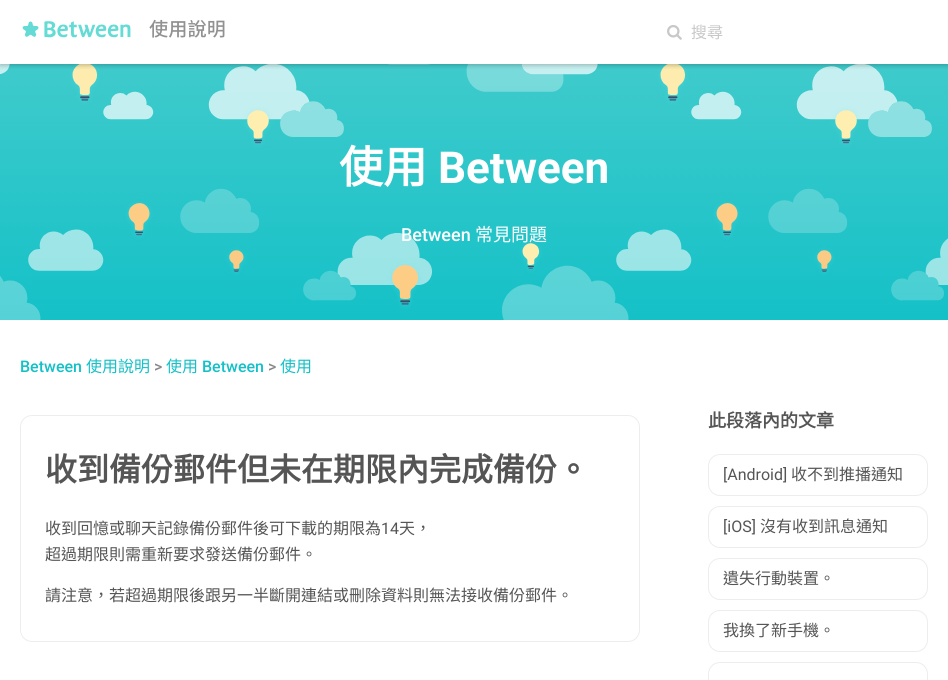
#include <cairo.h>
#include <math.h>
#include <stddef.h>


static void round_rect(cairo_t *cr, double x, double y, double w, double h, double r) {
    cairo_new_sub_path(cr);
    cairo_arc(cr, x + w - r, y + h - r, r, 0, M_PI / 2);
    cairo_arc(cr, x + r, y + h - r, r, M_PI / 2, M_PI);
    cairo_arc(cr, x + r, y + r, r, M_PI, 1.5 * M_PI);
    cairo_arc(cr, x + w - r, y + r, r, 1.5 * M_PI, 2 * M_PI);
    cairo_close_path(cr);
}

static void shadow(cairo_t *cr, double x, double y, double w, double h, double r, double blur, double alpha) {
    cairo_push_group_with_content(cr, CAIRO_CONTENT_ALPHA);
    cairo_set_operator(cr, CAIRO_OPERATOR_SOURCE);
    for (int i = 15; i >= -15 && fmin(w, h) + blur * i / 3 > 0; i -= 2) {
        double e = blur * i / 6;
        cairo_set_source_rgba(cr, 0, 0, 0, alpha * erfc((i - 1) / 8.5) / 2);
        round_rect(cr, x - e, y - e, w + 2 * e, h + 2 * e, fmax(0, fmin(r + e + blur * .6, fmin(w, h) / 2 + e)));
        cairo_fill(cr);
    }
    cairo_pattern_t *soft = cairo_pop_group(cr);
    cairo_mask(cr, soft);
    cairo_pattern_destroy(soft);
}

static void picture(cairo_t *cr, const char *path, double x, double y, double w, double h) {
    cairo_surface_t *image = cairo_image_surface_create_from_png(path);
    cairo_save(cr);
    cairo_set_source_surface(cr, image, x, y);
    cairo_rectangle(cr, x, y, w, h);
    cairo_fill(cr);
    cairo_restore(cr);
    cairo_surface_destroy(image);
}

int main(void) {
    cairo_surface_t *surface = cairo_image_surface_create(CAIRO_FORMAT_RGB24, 948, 680);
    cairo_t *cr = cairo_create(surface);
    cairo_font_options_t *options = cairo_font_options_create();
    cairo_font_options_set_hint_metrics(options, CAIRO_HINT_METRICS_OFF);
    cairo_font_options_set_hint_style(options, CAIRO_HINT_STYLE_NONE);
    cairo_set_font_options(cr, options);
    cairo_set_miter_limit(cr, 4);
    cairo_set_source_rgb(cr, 1, 1, 1);
    cairo_paint(cr);
    picture(cr, "img4.png", 0, 64, 948, 256);
    cairo_set_source_rgb(cr, 0, 0, 0);
    shadow(cr, 0, 2, 948, 64, 0, 2, 0.2);
    cairo_set_source_rgb(cr, 1, 1, 1);
    cairo_rectangle(cr, 0, 0, 948, 64);
    cairo_fill(cr);
    picture(cr, "img1.png", 22, 21, 109, 17);
    picture(cr, "img2.png", 149, 19, 76, 19);
    picture(cr, "img3.png", 667, 25, 15, 15);
    cairo_select_font_face(cr, "Noto Sans CJK TC", CAIRO_FONT_SLANT_NORMAL, CAIRO_FONT_WEIGHT_NORMAL);
    cairo_set_font_size(cr, 16);
    cairo_set_source_rgb(cr, 0.784, 0.784, 0.784);
    cairo_move_to(cr, 691, 38);
    cairo_show_text(cr, "搜尋");
    cairo_select_font_face(cr, "Noto Sans CJK TC", CAIRO_FONT_SLANT_NORMAL, CAIRO_FONT_WEIGHT_BOLD);
    cairo_set_font_size(cr, 44);
    cairo_set_source_rgb(cr, 1, 1, 1);
    cairo_move_to(cr, 339, 183);
    cairo_show_text(cr, "使用");
    cairo_select_font_face(cr, "Roboto", CAIRO_FONT_SLANT_NORMAL, CAIRO_FONT_WEIGHT_BOLD);
    cairo_move_to(cr, 438, 183);
    cairo_show_text(cr, "Between");
    cairo_select_font_face(cr, "Roboto Medium", CAIRO_FONT_SLANT_NORMAL, CAIRO_FONT_WEIGHT_NORMAL);
    cairo_set_font_size(cr, 18);
    cairo_move_to(cr, 401, 241);
    cairo_show_text(cr, "Between");
    cairo_select_font_face(cr, "Noto Sans CJK TC", CAIRO_FONT_SLANT_NORMAL, CAIRO_FONT_WEIGHT_NORMAL);
    cairo_move_to(cr, 475, 241);
    cairo_show_text(cr, "常見問題");
    cairo_select_font_face(cr, "Roboto Medium", CAIRO_FONT_SLANT_NORMAL, CAIRO_FONT_WEIGHT_NORMAL);
    cairo_set_font_size(cr, 16);
    cairo_set_source_rgb(cr, 0.078, 0.757, 0.78);
    cairo_move_to(cr, 20, 372);
    cairo_show_text(cr, "Between");
    cairo_select_font_face(cr, "Noto Sans CJK TC", CAIRO_FONT_SLANT_NORMAL, CAIRO_FONT_WEIGHT_NORMAL);
    cairo_move_to(cr, 86, 372);
    cairo_show_text(cr, "使用說明");
    cairo_select_font_face(cr, "Roboto Medium", CAIRO_FONT_SLANT_NORMAL, CAIRO_FONT_WEIGHT_NORMAL);
    cairo_set_source_rgb(cr, 0.533, 0.533, 0.533);
    cairo_move_to(cr, 154, 372);
    cairo_show_text(cr, ">");
    cairo_select_font_face(cr, "Noto Sans CJK TC", CAIRO_FONT_SLANT_NORMAL, CAIRO_FONT_WEIGHT_NORMAL);
    cairo_set_source_rgb(cr, 0.078, 0.757, 0.78);
    cairo_move_to(cr, 166, 372);
    cairo_show_text(cr, "使用");
    cairo_select_font_face(cr, "Roboto Medium", CAIRO_FONT_SLANT_NORMAL, CAIRO_FONT_WEIGHT_NORMAL);
    cairo_move_to(cr, 202, 372);
    cairo_show_text(cr, "Between");
    cairo_set_source_rgb(cr, 0.533, 0.533, 0.533);
    cairo_move_to(cr, 268, 372);
    cairo_show_text(cr, ">");
    cairo_select_font_face(cr, "Noto Sans CJK TC", CAIRO_FONT_SLANT_NORMAL, CAIRO_FONT_WEIGHT_NORMAL);
    cairo_set_source_rgb(cr, 0.078, 0.757, 0.78);
    cairo_move_to(cr, 280, 372);
    cairo_show_text(cr, "使用");
    round_rect(cr, 20.5, 415.5, 619, 226, 11.5);
    cairo_set_source_rgba(cr, 0.863, 0.863, 0.863, 0.5);
    cairo_set_line_width(cr, 1);
    cairo_stroke(cr);
    cairo_select_font_face(cr, "Noto Sans CJK TC", CAIRO_FONT_SLANT_NORMAL, CAIRO_FONT_WEIGHT_BOLD);
    cairo_set_font_size(cr, 32);
    cairo_set_source_rgb(cr, 0.333, 0.333, 0.333);
    cairo_move_to(cr, 45, 481);
    cairo_show_text(cr, "收到備份郵件但未在期限內完成備份。");
    cairo_select_font_face(cr, "Noto Sans CJK TC", CAIRO_FONT_SLANT_NORMAL, CAIRO_FONT_WEIGHT_NORMAL);
    cairo_set_font_size(cr, 16);
    cairo_move_to(cr, 45, 534);
    cairo_show_text(cr, "收到回憶或聊天記錄備份郵件後可下載的期限為");
    cairo_select_font_face(cr, "Roboto", CAIRO_FONT_SLANT_NORMAL, CAIRO_FONT_WEIGHT_NORMAL);
    cairo_move_to(cr, 381, 534);
    cairo_show_text(cr, "14");
    cairo_select_font_face(cr, "Noto Sans CJK TC", CAIRO_FONT_SLANT_NORMAL, CAIRO_FONT_WEIGHT_NORMAL);
    cairo_move_to(cr, 399, 534);
    cairo_show_text(cr, "天，");
    cairo_move_to(cr, 45, 560);
    cairo_show_text(cr, "超過期限則需重新要求發送備份郵件。");
    cairo_move_to(cr, 45, 601);
    cairo_show_text(cr, "請注意，若超過期限後跟另一半斷開連結或刪除資料則無法接收備份郵件。");
    cairo_select_font_face(cr, "Noto Sans CJK TC", CAIRO_FONT_SLANT_NORMAL, CAIRO_FONT_WEIGHT_BOLD);
    cairo_set_font_size(cr, 18);
    cairo_move_to(cr, 708, 427);
    cairo_show_text(cr, "此段落內的文章");
    round_rect(cr, 708.5, 454.5, 219, 41, 11.5);
    cairo_set_source_rgba(cr, 0.863, 0.863, 0.863, 0.5);
    cairo_stroke(cr);
    cairo_select_font_face(cr, "Roboto", CAIRO_FONT_SLANT_NORMAL, CAIRO_FONT_WEIGHT_NORMAL);
    cairo_set_font_size(cr, 16);
    cairo_set_source_rgb(cr, 0.333, 0.333, 0.333);
    cairo_move_to(cr, 723, 480);
    cairo_show_text(cr, "[Android]");
    cairo_select_font_face(cr, "Noto Sans CJK TC", CAIRO_FONT_SLANT_NORMAL, CAIRO_FONT_WEIGHT_NORMAL);
    cairo_move_to(cr, 791, 480);
    cairo_show_text(cr, "收不到推播通知");
    round_rect(cr, 708.5, 506.5, 219, 41, 11.5);
    cairo_set_source_rgba(cr, 0.863, 0.863, 0.863, 0.5);
    cairo_stroke(cr);
    cairo_select_font_face(cr, "Roboto", CAIRO_FONT_SLANT_NORMAL, CAIRO_FONT_WEIGHT_NORMAL);
    cairo_set_source_rgb(cr, 0.333, 0.333, 0.333);
    cairo_move_to(cr, 723, 532);
    cairo_show_text(cr, "[iOS]");
    cairo_select_font_face(cr, "Noto Sans CJK TC", CAIRO_FONT_SLANT_NORMAL, CAIRO_FONT_WEIGHT_NORMAL);
    cairo_move_to(cr, 760, 532);
    cairo_show_text(cr, "沒有收到訊息通知");
    round_rect(cr, 708.5, 558.5, 219, 41, 11.5);
    cairo_set_source_rgba(cr, 0.863, 0.863, 0.863, 0.5);
    cairo_stroke(cr);
    cairo_set_source_rgb(cr, 0.333, 0.333, 0.333);
    cairo_move_to(cr, 723, 584);
    cairo_show_text(cr, "遺失行動裝置。");
    round_rect(cr, 708.5, 610.5, 219, 41, 11.5);
    cairo_set_source_rgba(cr, 0.863, 0.863, 0.863, 0.5);
    cairo_stroke(cr);
    cairo_set_source_rgb(cr, 0.333, 0.333, 0.333);
    cairo_move_to(cr, 723, 636);
    cairo_show_text(cr, "我換了新手機。");
    round_rect(cr, 708.5, 662.5, 219, 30, 11.5);
    cairo_set_source_rgb(cr, 0.929, 0.929, 0.929);
    cairo_stroke(cr);
    cairo_surface_write_to_png(surface, "page.png");
    cairo_font_options_destroy(options);
    cairo_destroy(cr);
    cairo_surface_destroy(surface);
    return 0;
}
